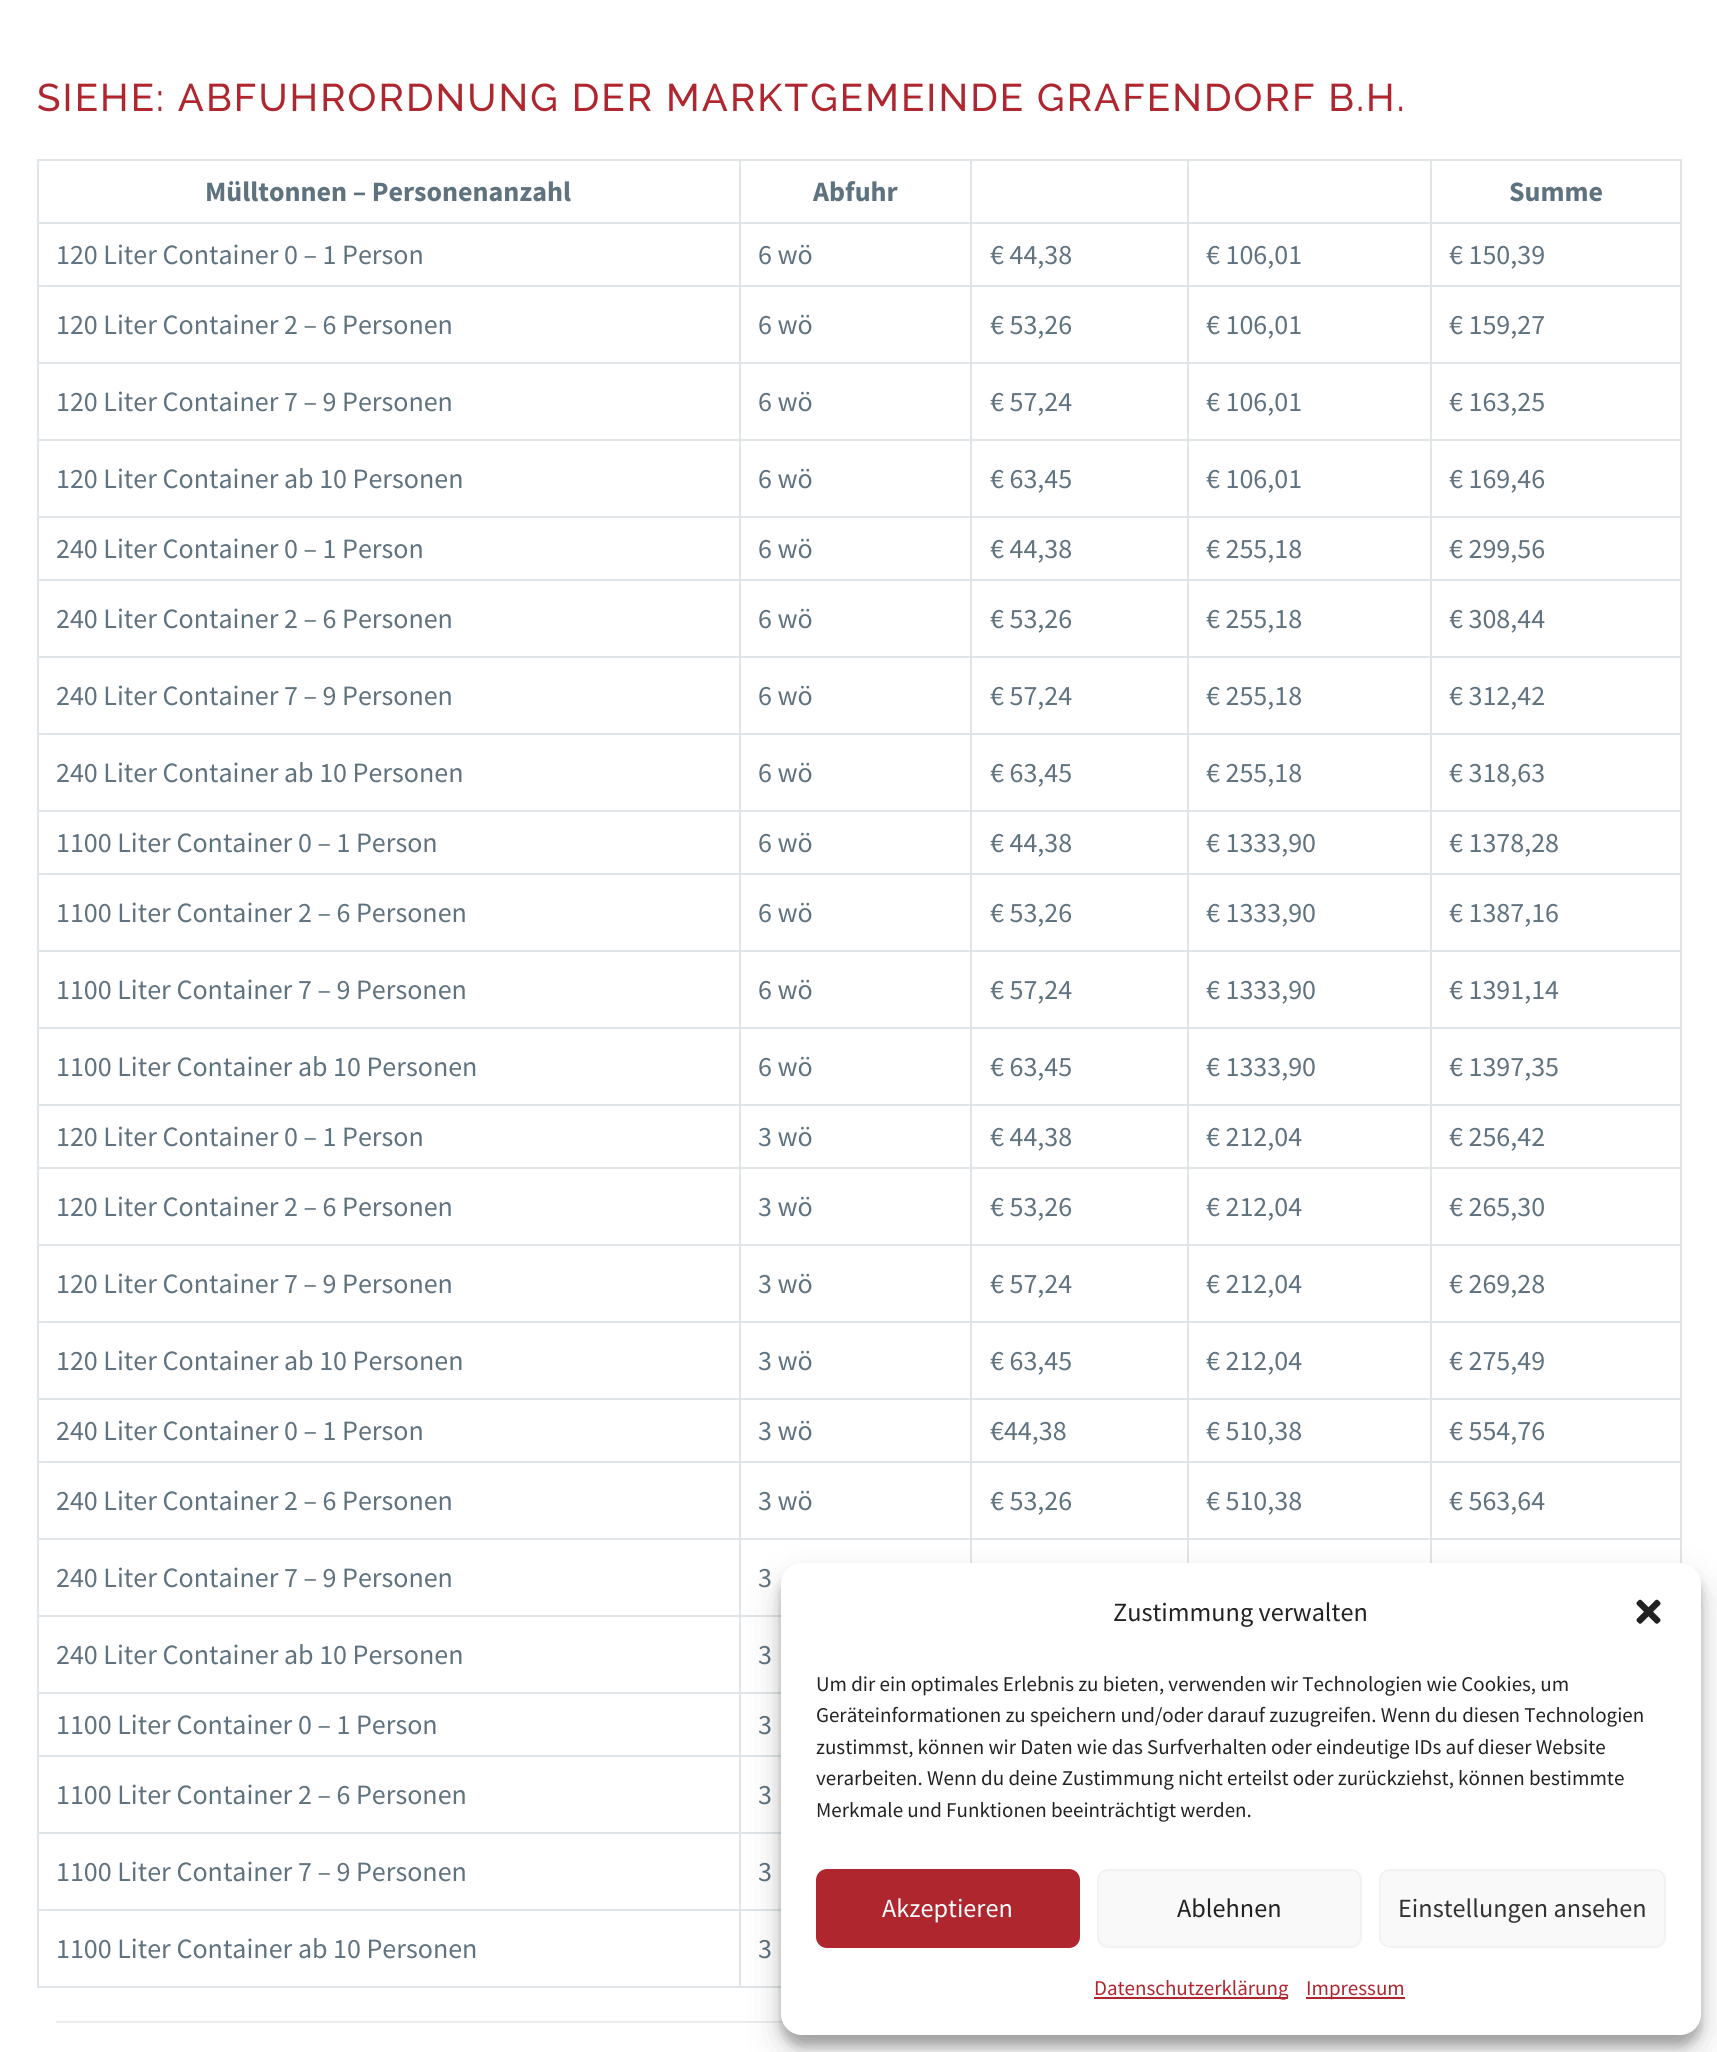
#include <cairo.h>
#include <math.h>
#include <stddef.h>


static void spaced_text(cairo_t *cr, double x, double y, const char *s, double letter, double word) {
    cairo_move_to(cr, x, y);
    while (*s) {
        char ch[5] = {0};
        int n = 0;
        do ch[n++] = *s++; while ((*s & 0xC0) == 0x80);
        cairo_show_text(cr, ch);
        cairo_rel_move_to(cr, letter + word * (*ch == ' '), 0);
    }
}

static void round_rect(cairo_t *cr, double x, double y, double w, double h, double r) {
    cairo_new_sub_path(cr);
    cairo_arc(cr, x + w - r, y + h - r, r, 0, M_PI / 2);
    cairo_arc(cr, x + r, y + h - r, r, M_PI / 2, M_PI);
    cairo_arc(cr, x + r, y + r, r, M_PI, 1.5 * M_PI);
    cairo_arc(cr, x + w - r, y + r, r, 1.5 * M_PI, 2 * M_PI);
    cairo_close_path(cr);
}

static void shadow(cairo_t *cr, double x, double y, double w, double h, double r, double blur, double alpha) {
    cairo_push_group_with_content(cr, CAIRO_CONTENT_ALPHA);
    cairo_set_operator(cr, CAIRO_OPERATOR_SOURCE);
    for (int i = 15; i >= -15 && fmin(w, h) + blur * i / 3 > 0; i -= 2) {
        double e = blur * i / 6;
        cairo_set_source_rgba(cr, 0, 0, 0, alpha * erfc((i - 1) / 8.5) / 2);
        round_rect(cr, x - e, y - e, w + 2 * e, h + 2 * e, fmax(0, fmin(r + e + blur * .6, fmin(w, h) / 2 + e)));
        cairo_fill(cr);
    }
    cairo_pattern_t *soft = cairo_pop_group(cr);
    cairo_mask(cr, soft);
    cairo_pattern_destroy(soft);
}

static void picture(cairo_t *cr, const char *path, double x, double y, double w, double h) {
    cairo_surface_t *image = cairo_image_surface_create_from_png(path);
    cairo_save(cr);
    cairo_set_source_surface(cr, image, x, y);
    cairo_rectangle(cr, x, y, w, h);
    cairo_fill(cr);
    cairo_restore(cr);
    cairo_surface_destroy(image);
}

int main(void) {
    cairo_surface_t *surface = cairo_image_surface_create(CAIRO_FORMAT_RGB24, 1717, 2052);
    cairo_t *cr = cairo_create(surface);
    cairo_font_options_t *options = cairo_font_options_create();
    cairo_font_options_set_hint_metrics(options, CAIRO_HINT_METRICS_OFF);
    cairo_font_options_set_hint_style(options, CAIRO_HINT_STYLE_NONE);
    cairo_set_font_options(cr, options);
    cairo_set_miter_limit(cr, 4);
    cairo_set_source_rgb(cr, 1, 1, 1);
    cairo_paint(cr);
    cairo_select_font_face(cr, "Raleway Medium", CAIRO_FONT_SLANT_NORMAL, CAIRO_FONT_WEIGHT_NORMAL);
    cairo_set_font_size(cr, 38.5);
    cairo_set_source_rgb(cr, 0.686, 0.149, 0.184);
    spaced_text(cr, 37, 111, "SIEHE: ABFUHRORDNUNG DER MARKTGEMEINDE GRAFENDORF B.H.", 2.1, 0);
    cairo_set_source_rgb(cr, 0.875, 0.898, 0.91);
    cairo_rectangle(cr, 1430, 159, 252, 2);
    cairo_fill(cr);
    cairo_rectangle(cr, 1430, 222, 252, 2);
    cairo_fill(cr);
    cairo_rectangle(cr, 1430, 285, 252, 2);
    cairo_fill(cr);
    cairo_rectangle(cr, 1430, 362, 252, 2);
    cairo_fill(cr);
    cairo_rectangle(cr, 1430, 439, 252, 2);
    cairo_fill(cr);
    cairo_rectangle(cr, 1430, 516, 252, 2);
    cairo_fill(cr);
    cairo_rectangle(cr, 1430, 579, 252, 2);
    cairo_fill(cr);
    cairo_rectangle(cr, 1430, 656, 252, 2);
    cairo_fill(cr);
    cairo_rectangle(cr, 1430, 733, 252, 2);
    cairo_fill(cr);
    cairo_rectangle(cr, 1430, 810, 252, 2);
    cairo_fill(cr);
    cairo_rectangle(cr, 1430, 873, 252, 2);
    cairo_fill(cr);
    cairo_rectangle(cr, 1430, 950, 252, 2);
    cairo_fill(cr);
    cairo_rectangle(cr, 1430, 1027, 252, 2);
    cairo_fill(cr);
    cairo_rectangle(cr, 1430, 1104, 252, 2);
    cairo_fill(cr);
    cairo_rectangle(cr, 1430, 1167, 252, 2);
    cairo_fill(cr);
    cairo_rectangle(cr, 1430, 1244, 252, 2);
    cairo_fill(cr);
    cairo_rectangle(cr, 1430, 1321, 252, 2);
    cairo_fill(cr);
    cairo_rectangle(cr, 1430, 1398, 252, 2);
    cairo_fill(cr);
    cairo_rectangle(cr, 1430, 1461, 252, 2);
    cairo_fill(cr);
    cairo_rectangle(cr, 1430, 1538, 252, 2);
    cairo_fill(cr);
    cairo_rectangle(cr, 1430, 1538, 2, 25);
    cairo_fill(cr);
    cairo_rectangle(cr, 1187, 1538, 245, 2);
    cairo_fill(cr);
    cairo_rectangle(cr, 1430, 1461, 2, 79);
    cairo_fill(cr);
    cairo_rectangle(cr, 1187, 1461, 245, 2);
    cairo_fill(cr);
    cairo_rectangle(cr, 1430, 1398, 2, 65);
    cairo_fill(cr);
    cairo_rectangle(cr, 1187, 1398, 245, 2);
    cairo_fill(cr);
    cairo_rectangle(cr, 1430, 1321, 2, 79);
    cairo_fill(cr);
    cairo_rectangle(cr, 1187, 1321, 245, 2);
    cairo_fill(cr);
    cairo_rectangle(cr, 1430, 1244, 2, 79);
    cairo_fill(cr);
    cairo_rectangle(cr, 1187, 1244, 245, 2);
    cairo_fill(cr);
    cairo_rectangle(cr, 1430, 1167, 2, 79);
    cairo_fill(cr);
    cairo_rectangle(cr, 1187, 1167, 245, 2);
    cairo_fill(cr);
    cairo_rectangle(cr, 1430, 1104, 2, 65);
    cairo_fill(cr);
    cairo_rectangle(cr, 1187, 1104, 245, 2);
    cairo_fill(cr);
    cairo_rectangle(cr, 1430, 1027, 2, 79);
    cairo_fill(cr);
    cairo_rectangle(cr, 1187, 1027, 245, 2);
    cairo_fill(cr);
    cairo_rectangle(cr, 1430, 950, 2, 79);
    cairo_fill(cr);
    cairo_rectangle(cr, 1187, 950, 245, 2);
    cairo_fill(cr);
    cairo_rectangle(cr, 1430, 873, 2, 79);
    cairo_fill(cr);
    cairo_rectangle(cr, 1187, 873, 245, 2);
    cairo_fill(cr);
    cairo_rectangle(cr, 1430, 810, 2, 65);
    cairo_fill(cr);
    cairo_rectangle(cr, 1187, 810, 245, 2);
    cairo_fill(cr);
    cairo_rectangle(cr, 1430, 733, 2, 79);
    cairo_fill(cr);
    cairo_rectangle(cr, 1187, 733, 245, 2);
    cairo_fill(cr);
    cairo_rectangle(cr, 1430, 656, 2, 79);
    cairo_fill(cr);
    cairo_rectangle(cr, 1187, 656, 245, 2);
    cairo_fill(cr);
    cairo_rectangle(cr, 1430, 579, 2, 79);
    cairo_fill(cr);
    cairo_rectangle(cr, 1187, 579, 245, 2);
    cairo_fill(cr);
    cairo_rectangle(cr, 1430, 516, 2, 65);
    cairo_fill(cr);
    cairo_rectangle(cr, 1187, 516, 245, 2);
    cairo_fill(cr);
    cairo_rectangle(cr, 1430, 439, 2, 79);
    cairo_fill(cr);
    cairo_rectangle(cr, 1187, 439, 245, 2);
    cairo_fill(cr);
    cairo_rectangle(cr, 1430, 362, 2, 79);
    cairo_fill(cr);
    cairo_rectangle(cr, 1187, 362, 245, 2);
    cairo_fill(cr);
    cairo_rectangle(cr, 1430, 285, 2, 79);
    cairo_fill(cr);
    cairo_rectangle(cr, 1187, 285, 245, 2);
    cairo_fill(cr);
    cairo_rectangle(cr, 1430, 222, 2, 65);
    cairo_fill(cr);
    cairo_rectangle(cr, 1187, 222, 245, 2);
    cairo_fill(cr);
    cairo_rectangle(cr, 1430, 159, 2, 65);
    cairo_fill(cr);
    cairo_rectangle(cr, 1187, 159, 245, 2);
    cairo_fill(cr);
    cairo_rectangle(cr, 1187, 1538, 2, 25);
    cairo_fill(cr);
    cairo_rectangle(cr, 970, 1538, 218, 2);
    cairo_fill(cr);
    cairo_rectangle(cr, 1187, 1461, 2, 79);
    cairo_fill(cr);
    cairo_rectangle(cr, 970, 1461, 218, 2);
    cairo_fill(cr);
    cairo_rectangle(cr, 1187, 1398, 2, 65);
    cairo_fill(cr);
    cairo_rectangle(cr, 970, 1398, 218, 2);
    cairo_fill(cr);
    cairo_rectangle(cr, 1187, 1321, 2, 79);
    cairo_fill(cr);
    cairo_rectangle(cr, 970, 1321, 218, 2);
    cairo_fill(cr);
    cairo_rectangle(cr, 1187, 1244, 2, 79);
    cairo_fill(cr);
    cairo_rectangle(cr, 970, 1244, 218, 2);
    cairo_fill(cr);
    cairo_rectangle(cr, 1187, 1167, 2, 79);
    cairo_fill(cr);
    cairo_rectangle(cr, 970, 1167, 218, 2);
    cairo_fill(cr);
    cairo_rectangle(cr, 1187, 1104, 2, 65);
    cairo_fill(cr);
    cairo_rectangle(cr, 970, 1104, 218, 2);
    cairo_fill(cr);
    cairo_rectangle(cr, 1187, 1027, 2, 79);
    cairo_fill(cr);
    cairo_rectangle(cr, 970, 1027, 218, 2);
    cairo_fill(cr);
    cairo_rectangle(cr, 1187, 950, 2, 79);
    cairo_fill(cr);
    cairo_rectangle(cr, 970, 950, 218, 2);
    cairo_fill(cr);
    cairo_rectangle(cr, 1187, 873, 2, 79);
    cairo_fill(cr);
    cairo_rectangle(cr, 970, 873, 218, 2);
    cairo_fill(cr);
    cairo_rectangle(cr, 1187, 810, 2, 65);
    cairo_fill(cr);
    cairo_rectangle(cr, 970, 810, 218, 2);
    cairo_fill(cr);
    cairo_rectangle(cr, 1187, 733, 2, 79);
    cairo_fill(cr);
    cairo_rectangle(cr, 970, 733, 218, 2);
    cairo_fill(cr);
    cairo_rectangle(cr, 1187, 656, 2, 79);
    cairo_fill(cr);
    cairo_rectangle(cr, 970, 656, 218, 2);
    cairo_fill(cr);
    cairo_rectangle(cr, 1187, 579, 2, 79);
    cairo_fill(cr);
    cairo_rectangle(cr, 970, 579, 218, 2);
    cairo_fill(cr);
    cairo_rectangle(cr, 1187, 516, 2, 65);
    cairo_fill(cr);
    cairo_rectangle(cr, 970, 516, 218, 2);
    cairo_fill(cr);
    cairo_rectangle(cr, 1187, 439, 2, 79);
    cairo_fill(cr);
    cairo_rectangle(cr, 970, 439, 218, 2);
    cairo_fill(cr);
    cairo_rectangle(cr, 1187, 362, 2, 79);
    cairo_fill(cr);
    cairo_rectangle(cr, 970, 362, 218, 2);
    cairo_fill(cr);
    cairo_rectangle(cr, 1187, 285, 2, 79);
    cairo_fill(cr);
    cairo_rectangle(cr, 970, 285, 218, 2);
    cairo_fill(cr);
    cairo_rectangle(cr, 1187, 222, 2, 65);
    cairo_fill(cr);
    cairo_rectangle(cr, 970, 222, 218, 2);
    cairo_fill(cr);
    cairo_rectangle(cr, 1187, 159, 2, 65);
    cairo_fill(cr);
    cairo_rectangle(cr, 970, 159, 218, 2);
    cairo_fill(cr);
    cairo_rectangle(cr, 970, 1538, 2, 25);
    cairo_fill(cr);
    cairo_rectangle(cr, 739, 1538, 232, 2);
    cairo_fill(cr);
    cairo_rectangle(cr, 970, 1461, 2, 79);
    cairo_fill(cr);
    cairo_rectangle(cr, 739, 1461, 232, 2);
    cairo_fill(cr);
    cairo_rectangle(cr, 970, 1398, 2, 65);
    cairo_fill(cr);
    cairo_rectangle(cr, 739, 1398, 232, 2);
    cairo_fill(cr);
    cairo_rectangle(cr, 970, 1321, 2, 79);
    cairo_fill(cr);
    cairo_rectangle(cr, 739, 1321, 232, 2);
    cairo_fill(cr);
    cairo_rectangle(cr, 970, 1244, 2, 79);
    cairo_fill(cr);
    cairo_rectangle(cr, 739, 1244, 232, 2);
    cairo_fill(cr);
    cairo_rectangle(cr, 970, 1167, 2, 79);
    cairo_fill(cr);
    cairo_rectangle(cr, 739, 1167, 232, 2);
    cairo_fill(cr);
    cairo_rectangle(cr, 970, 1104, 2, 65);
    cairo_fill(cr);
    cairo_rectangle(cr, 739, 1104, 232, 2);
    cairo_fill(cr);
    cairo_rectangle(cr, 970, 1027, 2, 79);
    cairo_fill(cr);
    cairo_rectangle(cr, 739, 1027, 232, 2);
    cairo_fill(cr);
    cairo_rectangle(cr, 970, 950, 2, 79);
    cairo_fill(cr);
    cairo_rectangle(cr, 739, 950, 232, 2);
    cairo_fill(cr);
    cairo_rectangle(cr, 970, 873, 2, 79);
    cairo_fill(cr);
    cairo_rectangle(cr, 739, 873, 232, 2);
    cairo_fill(cr);
    cairo_rectangle(cr, 970, 810, 2, 65);
    cairo_fill(cr);
    cairo_rectangle(cr, 739, 810, 232, 2);
    cairo_fill(cr);
    cairo_rectangle(cr, 970, 733, 2, 79);
    cairo_fill(cr);
    cairo_rectangle(cr, 739, 733, 232, 2);
    cairo_fill(cr);
    cairo_rectangle(cr, 970, 656, 2, 79);
    cairo_fill(cr);
    cairo_rectangle(cr, 739, 656, 232, 2);
    cairo_fill(cr);
    cairo_rectangle(cr, 970, 579, 2, 79);
    cairo_fill(cr);
    cairo_rectangle(cr, 739, 579, 232, 2);
    cairo_fill(cr);
    cairo_rectangle(cr, 970, 516, 2, 65);
    cairo_fill(cr);
    cairo_rectangle(cr, 739, 516, 232, 2);
    cairo_fill(cr);
    cairo_rectangle(cr, 970, 439, 2, 79);
    cairo_fill(cr);
    cairo_rectangle(cr, 739, 439, 232, 2);
    cairo_fill(cr);
    cairo_rectangle(cr, 970, 362, 2, 79);
    cairo_fill(cr);
    cairo_rectangle(cr, 739, 362, 232, 2);
    cairo_fill(cr);
    cairo_rectangle(cr, 970, 285, 2, 79);
    cairo_fill(cr);
    cairo_rectangle(cr, 739, 285, 232, 2);
    cairo_fill(cr);
    cairo_rectangle(cr, 970, 222, 2, 65);
    cairo_fill(cr);
    cairo_rectangle(cr, 739, 222, 232, 2);
    cairo_fill(cr);
    cairo_rectangle(cr, 970, 159, 2, 65);
    cairo_fill(cr);
    cairo_rectangle(cr, 739, 159, 232, 2);
    cairo_fill(cr);
    cairo_rectangle(cr, 739, 1615, 42, 2);
    cairo_fill(cr);
    cairo_rectangle(cr, 739, 1692, 42, 2);
    cairo_fill(cr);
    cairo_rectangle(cr, 739, 1755, 42, 2);
    cairo_fill(cr);
    cairo_rectangle(cr, 739, 1832, 42, 2);
    cairo_fill(cr);
    cairo_rectangle(cr, 739, 1909, 42, 2);
    cairo_fill(cr);
    cairo_rectangle(cr, 739, 1986, 42, 2);
    cairo_fill(cr);
    cairo_rectangle(cr, 739, 1909, 2, 79);
    cairo_fill(cr);
    cairo_rectangle(cr, 37, 1909, 703, 2);
    cairo_fill(cr);
    cairo_rectangle(cr, 739, 1832, 2, 79);
    cairo_fill(cr);
    cairo_rectangle(cr, 37, 1832, 703, 2);
    cairo_fill(cr);
    cairo_rectangle(cr, 739, 1755, 2, 79);
    cairo_fill(cr);
    cairo_rectangle(cr, 37, 1755, 703, 2);
    cairo_fill(cr);
    cairo_rectangle(cr, 739, 1692, 2, 65);
    cairo_fill(cr);
    cairo_rectangle(cr, 37, 1692, 703, 2);
    cairo_fill(cr);
    cairo_rectangle(cr, 739, 1615, 2, 79);
    cairo_fill(cr);
    cairo_rectangle(cr, 37, 1615, 703, 2);
    cairo_fill(cr);
    cairo_rectangle(cr, 739, 1538, 2, 79);
    cairo_fill(cr);
    cairo_rectangle(cr, 37, 1538, 703, 2);
    cairo_fill(cr);
    cairo_rectangle(cr, 739, 1461, 2, 79);
    cairo_fill(cr);
    cairo_rectangle(cr, 37, 1461, 703, 2);
    cairo_fill(cr);
    cairo_rectangle(cr, 739, 1398, 2, 65);
    cairo_fill(cr);
    cairo_rectangle(cr, 37, 1398, 703, 2);
    cairo_fill(cr);
    cairo_rectangle(cr, 739, 1321, 2, 79);
    cairo_fill(cr);
    cairo_rectangle(cr, 37, 1321, 703, 2);
    cairo_fill(cr);
    cairo_rectangle(cr, 739, 1244, 2, 79);
    cairo_fill(cr);
    cairo_rectangle(cr, 37, 1244, 703, 2);
    cairo_fill(cr);
    cairo_rectangle(cr, 739, 1167, 2, 79);
    cairo_fill(cr);
    cairo_rectangle(cr, 37, 1167, 703, 2);
    cairo_fill(cr);
    cairo_rectangle(cr, 739, 1104, 2, 65);
    cairo_fill(cr);
    cairo_rectangle(cr, 37, 1104, 703, 2);
    cairo_fill(cr);
    cairo_rectangle(cr, 739, 1027, 2, 79);
    cairo_fill(cr);
    cairo_rectangle(cr, 37, 1027, 703, 2);
    cairo_fill(cr);
    cairo_rectangle(cr, 739, 950, 2, 79);
    cairo_fill(cr);
    cairo_rectangle(cr, 37, 950, 703, 2);
    cairo_fill(cr);
    cairo_rectangle(cr, 739, 873, 2, 79);
    cairo_fill(cr);
    cairo_rectangle(cr, 37, 873, 703, 2);
    cairo_fill(cr);
    cairo_rectangle(cr, 739, 810, 2, 65);
    cairo_fill(cr);
    cairo_rectangle(cr, 37, 810, 703, 2);
    cairo_fill(cr);
    cairo_rectangle(cr, 739, 733, 2, 79);
    cairo_fill(cr);
    cairo_rectangle(cr, 37, 733, 703, 2);
    cairo_fill(cr);
    cairo_rectangle(cr, 739, 656, 2, 79);
    cairo_fill(cr);
    cairo_rectangle(cr, 37, 656, 703, 2);
    cairo_fill(cr);
    cairo_rectangle(cr, 739, 579, 2, 79);
    cairo_fill(cr);
    cairo_rectangle(cr, 37, 579, 703, 2);
    cairo_fill(cr);
    cairo_rectangle(cr, 739, 516, 2, 65);
    cairo_fill(cr);
    cairo_rectangle(cr, 37, 516, 703, 2);
    cairo_fill(cr);
    cairo_rectangle(cr, 739, 439, 2, 79);
    cairo_fill(cr);
    cairo_rectangle(cr, 37, 439, 703, 2);
    cairo_fill(cr);
    cairo_rectangle(cr, 739, 362, 2, 79);
    cairo_fill(cr);
    cairo_rectangle(cr, 37, 362, 703, 2);
    cairo_fill(cr);
    cairo_rectangle(cr, 739, 285, 2, 79);
    cairo_fill(cr);
    cairo_rectangle(cr, 37, 285, 703, 2);
    cairo_fill(cr);
    cairo_rectangle(cr, 739, 222, 2, 65);
    cairo_fill(cr);
    cairo_rectangle(cr, 37, 222, 703, 2);
    cairo_fill(cr);
    cairo_rectangle(cr, 739, 159, 2, 65);
    cairo_fill(cr);
    cairo_rectangle(cr, 37, 159, 703, 2);
    cairo_fill(cr);
    cairo_rectangle(cr, 37, 1986, 703, 2);
    cairo_fill(cr);
    cairo_rectangle(cr, 37, 1909, 2, 79);
    cairo_fill(cr);
    cairo_rectangle(cr, 37, 1832, 2, 79);
    cairo_fill(cr);
    cairo_rectangle(cr, 37, 1755, 2, 79);
    cairo_fill(cr);
    cairo_rectangle(cr, 37, 1692, 2, 65);
    cairo_fill(cr);
    cairo_rectangle(cr, 37, 1615, 2, 79);
    cairo_fill(cr);
    cairo_rectangle(cr, 37, 1538, 2, 79);
    cairo_fill(cr);
    cairo_rectangle(cr, 37, 1461, 2, 79);
    cairo_fill(cr);
    cairo_rectangle(cr, 37, 1398, 2, 65);
    cairo_fill(cr);
    cairo_rectangle(cr, 37, 1321, 2, 79);
    cairo_fill(cr);
    cairo_rectangle(cr, 37, 1244, 2, 79);
    cairo_fill(cr);
    cairo_rectangle(cr, 37, 1167, 2, 79);
    cairo_fill(cr);
    cairo_rectangle(cr, 37, 1104, 2, 65);
    cairo_fill(cr);
    cairo_rectangle(cr, 37, 1027, 2, 79);
    cairo_fill(cr);
    cairo_rectangle(cr, 37, 950, 2, 79);
    cairo_fill(cr);
    cairo_rectangle(cr, 37, 873, 2, 79);
    cairo_fill(cr);
    cairo_rectangle(cr, 37, 810, 2, 65);
    cairo_fill(cr);
    cairo_rectangle(cr, 37, 733, 2, 79);
    cairo_fill(cr);
    cairo_rectangle(cr, 37, 656, 2, 79);
    cairo_fill(cr);
    cairo_rectangle(cr, 37, 579, 2, 79);
    cairo_fill(cr);
    cairo_rectangle(cr, 37, 516, 2, 65);
    cairo_fill(cr);
    cairo_rectangle(cr, 37, 439, 2, 79);
    cairo_fill(cr);
    cairo_rectangle(cr, 37, 362, 2, 79);
    cairo_fill(cr);
    cairo_rectangle(cr, 37, 285, 2, 79);
    cairo_fill(cr);
    cairo_rectangle(cr, 37, 222, 2, 65);
    cairo_fill(cr);
    cairo_rectangle(cr, 37, 159, 2, 65);
    cairo_fill(cr);
    cairo_select_font_face(cr, "Source Sans Pro", CAIRO_FONT_SLANT_NORMAL, CAIRO_FONT_WEIGHT_BOLD);
    cairo_set_font_size(cr, 28);
    cairo_set_source_rgb(cr, 0.373, 0.447, 0.498);
    cairo_move_to(cr, 205, 201);
    cairo_show_text(cr, "Mülltonnen – Personenanzahl");
    cairo_move_to(cr, 813, 201);
    cairo_show_text(cr, "Abfuhr");
    cairo_set_source_rgb(cr, 0.875, 0.898, 0.91);
    cairo_rectangle(cr, 1680, 1538, 2, 26);
    cairo_fill(cr);
    cairo_rectangle(cr, 1680, 1461, 2, 79);
    cairo_fill(cr);
    cairo_rectangle(cr, 1680, 1398, 2, 65);
    cairo_fill(cr);
    cairo_rectangle(cr, 1680, 1321, 2, 79);
    cairo_fill(cr);
    cairo_rectangle(cr, 1680, 1244, 2, 79);
    cairo_fill(cr);
    cairo_rectangle(cr, 1680, 1167, 2, 79);
    cairo_fill(cr);
    cairo_rectangle(cr, 1680, 1104, 2, 65);
    cairo_fill(cr);
    cairo_rectangle(cr, 1680, 1027, 2, 79);
    cairo_fill(cr);
    cairo_rectangle(cr, 1680, 950, 2, 79);
    cairo_fill(cr);
    cairo_rectangle(cr, 1680, 873, 2, 79);
    cairo_fill(cr);
    cairo_rectangle(cr, 1680, 810, 2, 65);
    cairo_fill(cr);
    cairo_rectangle(cr, 1680, 733, 2, 79);
    cairo_fill(cr);
    cairo_rectangle(cr, 1680, 656, 2, 79);
    cairo_fill(cr);
    cairo_rectangle(cr, 1680, 579, 2, 79);
    cairo_fill(cr);
    cairo_rectangle(cr, 1680, 516, 2, 65);
    cairo_fill(cr);
    cairo_rectangle(cr, 1680, 439, 2, 79);
    cairo_fill(cr);
    cairo_rectangle(cr, 1680, 362, 2, 79);
    cairo_fill(cr);
    cairo_rectangle(cr, 1680, 285, 2, 79);
    cairo_fill(cr);
    cairo_rectangle(cr, 1680, 222, 2, 65);
    cairo_fill(cr);
    cairo_rectangle(cr, 1680, 159, 2, 65);
    cairo_fill(cr);
    cairo_set_source_rgb(cr, 0.373, 0.447, 0.498);
    cairo_move_to(cr, 1509, 201);
    cairo_show_text(cr, "Summe");
    cairo_select_font_face(cr, "Source Sans Pro", CAIRO_FONT_SLANT_NORMAL, CAIRO_FONT_WEIGHT_NORMAL);
    cairo_move_to(cr, 56, 264);
    cairo_show_text(cr, "120 Liter Container 0 – 1 Person");
    cairo_move_to(cr, 758, 264);
    cairo_show_text(cr, "6 wö");
    cairo_move_to(cr, 990, 264);
    cairo_show_text(cr, "€ 44,38");
    cairo_move_to(cr, 1206, 264);
    cairo_show_text(cr, "€ 106,01");
    cairo_move_to(cr, 1449, 264);
    cairo_show_text(cr, "€ 150,39");
    cairo_move_to(cr, 56, 334);
    cairo_show_text(cr, "120 Liter Container 2 – 6 Personen");
    cairo_move_to(cr, 758, 334);
    cairo_show_text(cr, "6 wö");
    cairo_move_to(cr, 990, 334);
    cairo_show_text(cr, "€ 53,26");
    cairo_move_to(cr, 1206, 334);
    cairo_show_text(cr, "€ 106,01");
    cairo_move_to(cr, 1449, 334);
    cairo_show_text(cr, "€ 159,27");
    cairo_move_to(cr, 56, 411);
    cairo_show_text(cr, "120 Liter Container 7 – 9 Personen");
    cairo_move_to(cr, 758, 411);
    cairo_show_text(cr, "6 wö");
    cairo_move_to(cr, 990, 411);
    cairo_show_text(cr, "€ 57,24");
    cairo_move_to(cr, 1206, 411);
    cairo_show_text(cr, "€ 106,01");
    cairo_move_to(cr, 1449, 411);
    cairo_show_text(cr, "€ 163,25");
    cairo_move_to(cr, 56, 488);
    cairo_show_text(cr, "120 Liter Container ab 10 Personen");
    cairo_move_to(cr, 758, 488);
    cairo_show_text(cr, "6 wö");
    cairo_move_to(cr, 990, 488);
    cairo_show_text(cr, "€ 63,45");
    cairo_move_to(cr, 1206, 488);
    cairo_show_text(cr, "€ 106,01");
    cairo_move_to(cr, 1449, 488);
    cairo_show_text(cr, "€ 169,46");
    cairo_move_to(cr, 56, 558);
    cairo_show_text(cr, "240 Liter Container 0 – 1 Person");
    cairo_move_to(cr, 758, 558);
    cairo_show_text(cr, "6 wö");
    cairo_move_to(cr, 990, 558);
    cairo_show_text(cr, "€ 44,38");
    cairo_move_to(cr, 1206, 558);
    cairo_show_text(cr, "€ 255,18");
    cairo_move_to(cr, 1449, 558);
    cairo_show_text(cr, "€ 299,56");
    cairo_move_to(cr, 56, 628);
    cairo_show_text(cr, "240 Liter Container 2 – 6 Personen");
    cairo_move_to(cr, 758, 628);
    cairo_show_text(cr, "6 wö");
    cairo_move_to(cr, 990, 628);
    cairo_show_text(cr, "€ 53,26");
    cairo_move_to(cr, 1206, 628);
    cairo_show_text(cr, "€ 255,18");
    cairo_move_to(cr, 1449, 628);
    cairo_show_text(cr, "€ 308,44");
    cairo_move_to(cr, 56, 705);
    cairo_show_text(cr, "240 Liter Container 7 – 9 Personen");
    cairo_move_to(cr, 758, 705);
    cairo_show_text(cr, "6 wö");
    cairo_move_to(cr, 990, 705);
    cairo_show_text(cr, "€ 57,24");
    cairo_move_to(cr, 1206, 705);
    cairo_show_text(cr, "€ 255,18");
    cairo_move_to(cr, 1449, 705);
    cairo_show_text(cr, "€ 312,42");
    cairo_move_to(cr, 56, 782);
    cairo_show_text(cr, "240 Liter Container ab 10 Personen");
    cairo_move_to(cr, 758, 782);
    cairo_show_text(cr, "6 wö");
    cairo_move_to(cr, 990, 782);
    cairo_show_text(cr, "€ 63,45");
    cairo_move_to(cr, 1206, 782);
    cairo_show_text(cr, "€ 255,18");
    cairo_move_to(cr, 1449, 782);
    cairo_show_text(cr, "€ 318,63");
    cairo_move_to(cr, 56, 852);
    cairo_show_text(cr, "1100 Liter Container 0 – 1 Person");
    cairo_move_to(cr, 758, 852);
    cairo_show_text(cr, "6 wö");
    cairo_move_to(cr, 990, 852);
    cairo_show_text(cr, "€ 44,38");
    cairo_move_to(cr, 1206, 852);
    cairo_show_text(cr, "€ 1333,90");
    cairo_move_to(cr, 1449, 852);
    cairo_show_text(cr, "€ 1378,28");
    cairo_move_to(cr, 56, 922);
    cairo_show_text(cr, "1100 Liter Container 2 – 6 Personen");
    cairo_move_to(cr, 758, 922);
    cairo_show_text(cr, "6 wö");
    cairo_move_to(cr, 990, 922);
    cairo_show_text(cr, "€ 53,26");
    cairo_move_to(cr, 1206, 922);
    cairo_show_text(cr, "€ 1333,90");
    cairo_move_to(cr, 1449, 922);
    cairo_show_text(cr, "€ 1387,16");
    cairo_move_to(cr, 56, 999);
    cairo_show_text(cr, "1100 Liter Container 7 – 9 Personen");
    cairo_move_to(cr, 758, 999);
    cairo_show_text(cr, "6 wö");
    cairo_move_to(cr, 990, 999);
    cairo_show_text(cr, "€ 57,24");
    cairo_move_to(cr, 1206, 999);
    cairo_show_text(cr, "€ 1333,90");
    cairo_move_to(cr, 1449, 999);
    cairo_show_text(cr, "€ 1391,14");
    cairo_move_to(cr, 56, 1076);
    cairo_show_text(cr, "1100 Liter Container ab 10 Personen");
    cairo_move_to(cr, 758, 1076);
    cairo_show_text(cr, "6 wö");
    cairo_move_to(cr, 990, 1076);
    cairo_show_text(cr, "€ 63,45");
    cairo_move_to(cr, 1206, 1076);
    cairo_show_text(cr, "€ 1333,90");
    cairo_move_to(cr, 1449, 1076);
    cairo_show_text(cr, "€ 1397,35");
    cairo_move_to(cr, 56, 1146);
    cairo_show_text(cr, "120 Liter Container 0 – 1 Person");
    cairo_move_to(cr, 758, 1146);
    cairo_show_text(cr, "3 wö");
    cairo_move_to(cr, 990, 1146);
    cairo_show_text(cr, "€ 44,38");
    cairo_move_to(cr, 1206, 1146);
    cairo_show_text(cr, "€ 212,04");
    cairo_move_to(cr, 1449, 1146);
    cairo_show_text(cr, "€ 256,42");
    cairo_move_to(cr, 56, 1216);
    cairo_show_text(cr, "120 Liter Container 2 – 6 Personen");
    cairo_move_to(cr, 758, 1216);
    cairo_show_text(cr, "3 wö");
    cairo_move_to(cr, 990, 1216);
    cairo_show_text(cr, "€ 53,26");
    cairo_move_to(cr, 1206, 1216);
    cairo_show_text(cr, "€ 212,04");
    cairo_move_to(cr, 1449, 1216);
    cairo_show_text(cr, "€ 265,30");
    cairo_move_to(cr, 56, 1293);
    cairo_show_text(cr, "120 Liter Container 7 – 9 Personen");
    cairo_move_to(cr, 758, 1293);
    cairo_show_text(cr, "3 wö");
    cairo_move_to(cr, 990, 1293);
    cairo_show_text(cr, "€ 57,24");
    cairo_move_to(cr, 1206, 1293);
    cairo_show_text(cr, "€ 212,04");
    cairo_move_to(cr, 1449, 1293);
    cairo_show_text(cr, "€ 269,28");
    cairo_move_to(cr, 56, 1370);
    cairo_show_text(cr, "120 Liter Container ab 10 Personen");
    cairo_move_to(cr, 758, 1370);
    cairo_show_text(cr, "3 wö");
    cairo_move_to(cr, 990, 1370);
    cairo_show_text(cr, "€ 63,45");
    cairo_move_to(cr, 1206, 1370);
    cairo_show_text(cr, "€ 212,04");
    cairo_move_to(cr, 1449, 1370);
    cairo_show_text(cr, "€ 275,49");
    cairo_move_to(cr, 56, 1440);
    cairo_show_text(cr, "240 Liter Container 0 – 1 Person");
    cairo_move_to(cr, 758, 1440);
    cairo_show_text(cr, "3 wö");
    cairo_move_to(cr, 990, 1440);
    cairo_show_text(cr, "€44,38");
    cairo_move_to(cr, 1206, 1440);
    cairo_show_text(cr, "€ 510,38");
    cairo_move_to(cr, 1449, 1440);
    cairo_show_text(cr, "€ 554,76");
    cairo_move_to(cr, 56, 1510);
    cairo_show_text(cr, "240 Liter Container 2 – 6 Personen");
    cairo_move_to(cr, 758, 1510);
    cairo_show_text(cr, "3 wö");
    cairo_move_to(cr, 990, 1510);
    cairo_show_text(cr, "€ 53,26");
    cairo_move_to(cr, 1206, 1510);
    cairo_show_text(cr, "€ 510,38");
    cairo_move_to(cr, 1449, 1510);
    cairo_show_text(cr, "€ 563,64");
    cairo_move_to(cr, 56, 1587);
    cairo_show_text(cr, "240 Liter Container 7 – 9 Personen");
    cairo_move_to(cr, 758, 1587);
    cairo_show_text(cr, "3");
    cairo_move_to(cr, 56, 1664);
    cairo_show_text(cr, "240 Liter Container ab 10 Personen");
    cairo_move_to(cr, 758, 1664);
    cairo_show_text(cr, "3");
    cairo_move_to(cr, 56, 1734);
    cairo_show_text(cr, "1100 Liter Container 0 – 1 Person");
    cairo_move_to(cr, 758, 1734);
    cairo_show_text(cr, "3");
    cairo_move_to(cr, 56, 1804);
    cairo_show_text(cr, "1100 Liter Container 2 – 6 Personen");
    cairo_move_to(cr, 758, 1804);
    cairo_show_text(cr, "3");
    cairo_move_to(cr, 56, 1881);
    cairo_show_text(cr, "1100 Liter Container 7 – 9 Personen");
    cairo_move_to(cr, 758, 1881);
    cairo_show_text(cr, "3");
    cairo_move_to(cr, 56, 1958);
    cairo_show_text(cr, "1100 Liter Container ab 10 Personen");
    cairo_move_to(cr, 758, 1958);
    cairo_show_text(cr, "3");
    cairo_set_source_rgb(cr, 0.922, 0.922, 0.922);
    cairo_rectangle(cr, 56, 2021, 727, 2);
    cairo_fill(cr);
    cairo_set_source_rgb(cr, 0, 0, 0);
    shadow(cr, 781, 1573, 920, 473, 21, 5, 0.23);
    shadow(cr, 781, 1580, 920, 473, 21, 17.5, 0.19);
    cairo_set_source_rgb(cr, 1, 1, 1);
    round_rect(cr, 781, 1563, 920, 472, 21);
    cairo_fill(cr);
    cairo_set_font_size(cr, 26.25);
    cairo_set_source_rgb(cr, 0.133, 0.133, 0.133);
    cairo_move_to(cr, 1113, 1621);
    cairo_show_text(cr, "Zustimmung verwalten");
    picture(cr, "img1.png", 1636, 1599, 25, 25);
    cairo_set_font_size(cr, 21);
    cairo_move_to(cr, 816, 1691);
    cairo_show_text(cr, "Um dir ein optimales Erlebnis zu bieten, verwenden wir Technologien wie Cookies, um");
    cairo_move_to(cr, 816, 1722);
    cairo_show_text(cr, "Geräteinformationen zu speichern und/oder darauf zuzugreifen. Wenn du diesen Technologien");
    cairo_move_to(cr, 816, 1754);
    cairo_show_text(cr, "zustimmst, können wir Daten wie das Surfverhalten oder eindeutige IDs auf dieser Website");
    cairo_move_to(cr, 816, 1785);
    cairo_show_text(cr, "verarbeiten. Wenn du deine Zustimmung nicht erteilst oder zurückziehst, können bestimmte");
    cairo_move_to(cr, 816, 1817);
    cairo_show_text(cr, "Merkmale und Funktionen beeinträchtigt werden.");
    cairo_set_source_rgb(cr, 0.686, 0.149, 0.184);
    round_rect(cr, 817, 1870, 262, 77, 10);
    cairo_fill_preserve(cr);
    cairo_stroke(cr);
    cairo_set_font_size(cr, 26.25);
    cairo_set_source_rgb(cr, 1, 1, 1);
    cairo_move_to(cr, 882, 1917);
    cairo_show_text(cr, "Akzeptieren");
    cairo_set_source_rgb(cr, 0.976, 0.976, 0.976);
    round_rect(cr, 1098, 1870, 263, 77, 10);
    cairo_fill_preserve(cr);
    cairo_set_source_rgb(cr, 0.949, 0.949, 0.949);
    cairo_stroke(cr);
    cairo_set_source_rgb(cr, 0.133, 0.133, 0.133);
    cairo_move_to(cr, 1177, 1917);
    cairo_show_text(cr, "Ablehnen");
    cairo_set_source_rgb(cr, 0.976, 0.976, 0.976);
    round_rect(cr, 1380, 1870, 285, 77, 10);
    cairo_fill_preserve(cr);
    cairo_set_source_rgb(cr, 0.949, 0.949, 0.949);
    cairo_stroke(cr);
    cairo_set_source_rgb(cr, 0.2, 0.2, 0.2);
    cairo_move_to(cr, 1398, 1917);
    cairo_show_text(cr, "Einstellungen ansehen");
    cairo_set_source_rgb(cr, 0.686, 0.149, 0.184);
    cairo_rectangle(cr, 1094, 1997, 194, 2);
    cairo_fill(cr);
    cairo_set_font_size(cr, 21);
    cairo_move_to(cr, 1094, 1995);
    cairo_show_text(cr, "Datenschutzerklärung");
    cairo_rectangle(cr, 1306, 1997, 99, 2);
    cairo_fill(cr);
    cairo_move_to(cr, 1306, 1995);
    cairo_show_text(cr, "Impressum");
    cairo_surface_write_to_png(surface, "page.png");
    cairo_font_options_destroy(options);
    cairo_destroy(cr);
    cairo_surface_destroy(surface);
    return 0;
}
